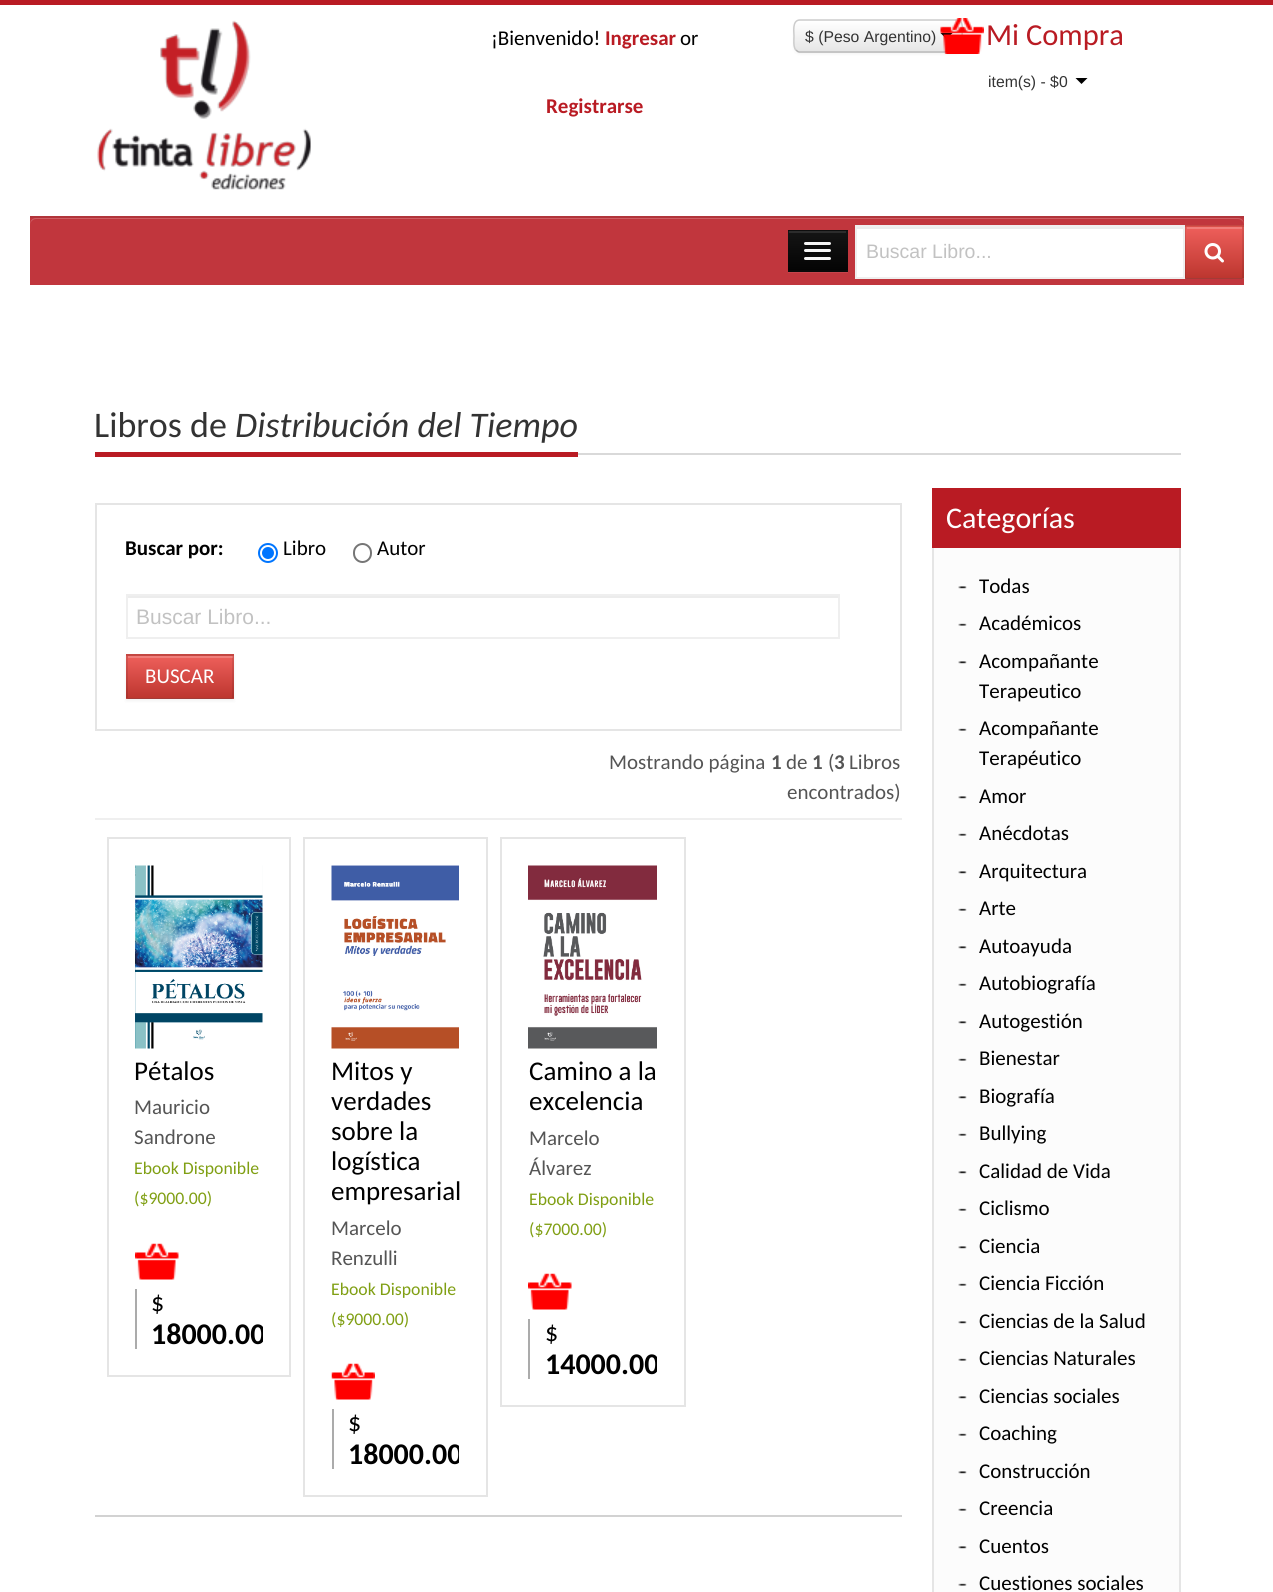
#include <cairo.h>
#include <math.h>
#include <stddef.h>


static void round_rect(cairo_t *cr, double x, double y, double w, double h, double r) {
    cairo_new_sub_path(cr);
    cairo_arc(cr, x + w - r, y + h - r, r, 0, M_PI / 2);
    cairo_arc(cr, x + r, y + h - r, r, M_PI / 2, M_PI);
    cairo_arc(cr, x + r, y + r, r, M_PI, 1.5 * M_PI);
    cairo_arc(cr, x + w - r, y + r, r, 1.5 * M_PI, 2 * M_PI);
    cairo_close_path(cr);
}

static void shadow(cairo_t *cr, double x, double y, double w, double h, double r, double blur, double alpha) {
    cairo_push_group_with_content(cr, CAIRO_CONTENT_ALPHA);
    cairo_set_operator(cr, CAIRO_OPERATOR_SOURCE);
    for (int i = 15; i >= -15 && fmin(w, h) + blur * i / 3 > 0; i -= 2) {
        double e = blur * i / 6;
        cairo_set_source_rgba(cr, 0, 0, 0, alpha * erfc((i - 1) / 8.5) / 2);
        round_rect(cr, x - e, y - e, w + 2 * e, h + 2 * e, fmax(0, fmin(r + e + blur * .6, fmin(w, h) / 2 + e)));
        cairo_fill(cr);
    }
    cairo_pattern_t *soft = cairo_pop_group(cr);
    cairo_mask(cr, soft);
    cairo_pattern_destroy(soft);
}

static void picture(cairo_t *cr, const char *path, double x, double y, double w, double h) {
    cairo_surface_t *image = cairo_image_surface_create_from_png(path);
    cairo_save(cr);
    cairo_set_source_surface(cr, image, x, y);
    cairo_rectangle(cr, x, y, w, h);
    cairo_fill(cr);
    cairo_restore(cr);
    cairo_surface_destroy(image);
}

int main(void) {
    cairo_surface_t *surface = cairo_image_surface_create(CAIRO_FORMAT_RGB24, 1273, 1592);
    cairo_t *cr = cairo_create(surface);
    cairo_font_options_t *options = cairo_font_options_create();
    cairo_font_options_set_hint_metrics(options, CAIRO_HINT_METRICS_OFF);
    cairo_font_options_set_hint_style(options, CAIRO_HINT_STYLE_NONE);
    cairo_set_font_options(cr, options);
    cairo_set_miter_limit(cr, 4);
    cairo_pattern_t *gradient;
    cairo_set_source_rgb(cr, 1, 1, 1);
    cairo_paint(cr);
    cairo_set_source_rgb(cr, 0.725, 0.106, 0.137);
    cairo_rectangle(cr, 0, 0, 1273, 5);
    cairo_fill(cr);
    picture(cr, "img1.png", 97, 20, 214, 170);
    cairo_select_font_face(cr, "Carlito", CAIRO_FONT_SLANT_NORMAL, CAIRO_FONT_WEIGHT_NORMAL);
    cairo_set_font_size(cr, 21);
    cairo_set_source_rgb(cr, 0, 0, 0);
    cairo_move_to(cr, 491, 45);
    cairo_show_text(cr, "¡Bienvenido!");
    cairo_select_font_face(cr, "Carlito", CAIRO_FONT_SLANT_NORMAL, CAIRO_FONT_WEIGHT_BOLD);
    cairo_set_source_rgb(cr, 0.725, 0.106, 0.137);
    cairo_move_to(cr, 605, 45);
    cairo_show_text(cr, "Ingresar");
    cairo_select_font_face(cr, "Carlito", CAIRO_FONT_SLANT_NORMAL, CAIRO_FONT_WEIGHT_NORMAL);
    cairo_set_source_rgb(cr, 0, 0, 0);
    cairo_move_to(cr, 680, 45);
    cairo_show_text(cr, "or");
    cairo_select_font_face(cr, "Carlito", CAIRO_FONT_SLANT_NORMAL, CAIRO_FONT_WEIGHT_BOLD);
    cairo_set_source_rgb(cr, 0.725, 0.106, 0.137);
    cairo_move_to(cr, 546, 113);
    cairo_show_text(cr, "Registrarse");
    cairo_set_source_rgb(cr, 0, 0, 0);
    shadow(cr, 794, 21, 169, 33, 6, 1.5, 0.05);
    cairo_set_source_rgb(cr, 0.961, 0.961, 0.961);
    round_rect(cr, 794, 20, 169, 33, 6);
    cairo_fill(cr);
    cairo_save(cr);
    round_rect(cr, 794, 20, 169, 33, 6);
    cairo_clip(cr);
    gradient = cairo_pattern_create_linear(878, 21, 878, 51);
    cairo_pattern_add_color_stop_rgba(gradient, 0, 1, 1, 1, 1);
    cairo_pattern_add_color_stop_rgba(gradient, 1, 0.902, 0.902, 0.902, 1);
    cairo_set_source(cr, gradient);
    cairo_pattern_destroy(gradient);
    cairo_rectangle(cr, 794, 21, 169, 30);
    cairo_fill(cr);
    cairo_restore(cr);
    cairo_new_path(cr);
    cairo_move_to(cr, 960.5, 50);
    cairo_curve_to(cr, 959.5, 51, 958.5, 52, 957, 52);
    cairo_line_to(cr, 799.5, 52);
    cairo_curve_to(cr, 798, 52, 797, 51, 796, 50);
    cairo_set_source_rgb(cr, 0.702, 0.702, 0.702);
    cairo_set_line_width(cr, 1.5);
    cairo_stroke(cr);
    cairo_new_path(cr);
    cairo_move_to(cr, 796, 50);
    cairo_curve_to(cr, 793, 47.5, 794, 39.5, 794, 36);
    cairo_curve_to(cr, 794, 32, 792, 20.5, 799.5, 20);
    cairo_line_to(cr, 957, 20);
    cairo_curve_to(cr, 964.5, 20.5, 962, 32, 962, 36);
    cairo_curve_to(cr, 962, 39.5, 963.5, 47.5, 960.5, 50);
    cairo_set_source_rgb(cr, 0.8, 0.8, 0.8);
    cairo_stroke(cr);
    cairo_select_font_face(cr, "Liberation Sans", CAIRO_FONT_SLANT_NORMAL, CAIRO_FONT_WEIGHT_NORMAL);
    cairo_set_font_size(cr, 15.75);
    cairo_set_source_rgb(cr, 0.2, 0.2, 0.2);
    cairo_move_to(cr, 805, 42);
    cairo_show_text(cr, "$ (Peso Argentino)");
    cairo_set_source_rgb(cr, 0, 0, 0);
    cairo_new_path(cr);
    cairo_move_to(cr, 940.5, 33);
    cairo_line_to(cr, 952.5, 33);
    cairo_line_to(cr, 946.5, 39);
    cairo_close_path(cr);
    cairo_fill(cr);
    picture(cr, "img2.png", 940, 18, 44, 36);
    cairo_select_font_face(cr, "Carlito", CAIRO_FONT_SLANT_NORMAL, CAIRO_FONT_WEIGHT_NORMAL);
    cairo_set_font_size(cr, 30.5);
    cairo_set_source_rgb(cr, 0.725, 0.106, 0.137);
    cairo_move_to(cr, 986, 45);
    cairo_show_text(cr, "Mi Compra");
    cairo_select_font_face(cr, "Liberation Sans", CAIRO_FONT_SLANT_NORMAL, CAIRO_FONT_WEIGHT_NORMAL);
    cairo_set_font_size(cr, 15.75);
    cairo_set_source_rgb(cr, 0.2, 0.2, 0.2);
    cairo_move_to(cr, 988, 87);
    cairo_show_text(cr, "item(s) - $0");
    cairo_set_source_rgb(cr, 0, 0, 0);
    cairo_new_path(cr);
    cairo_move_to(cr, 1075.5, 78);
    cairo_line_to(cr, 1087.5, 78);
    cairo_line_to(cr, 1081.5, 84);
    cairo_close_path(cr);
    cairo_fill(cr);
    cairo_set_source_rgb(cr, 0.757, 0.212, 0.239);
    cairo_rectangle(cr, 30, 218, 1214, 67);
    cairo_fill(cr);
    cairo_set_source_rgb(cr, 0.694, 0.204, 0.227);
    cairo_rectangle(cr, 30, 216, 1214, 2);
    cairo_fill(cr);
    cairo_set_source_rgb(cr, 0.804, 0.369, 0.392);
    cairo_new_path(cr);
    cairo_move_to(cr, 36, 219);
    cairo_line_to(cr, 1238, 219);
    cairo_curve_to(cr, 1241, 219, 1244, 222, 1244, 225);
    cairo_curve_to(cr, 1244, 221, 1242, 218, 1238, 218);
    cairo_line_to(cr, 36, 218);
    cairo_curve_to(cr, 32, 218, 30, 221, 30, 225);
    cairo_curve_to(cr, 30, 222, 33, 219, 36, 219);
    cairo_close_path(cr);
    cairo_fill(cr);
    cairo_set_source_rgb(cr, 0.776, 0.271, 0.298);
    cairo_new_path(cr);
    cairo_move_to(cr, 788, 272);
    cairo_line_to(cr, 788, 273);
    cairo_line_to(cr, 848, 273);
    cairo_line_to(cr, 848, 231);
    cairo_line_to(cr, 848, 272);
    cairo_close_path(cr);
    cairo_fill(cr);
    cairo_set_source_rgb(cr, 0.055, 0.055, 0.055);
    cairo_rectangle(cr, 788, 230, 60, 42);
    cairo_fill(cr);
    gradient = cairo_pattern_create_linear(818, 231, 818, 270);
    cairo_pattern_add_color_stop_rgba(gradient, 0, 0.082, 0.082, 0.082, 1);
    cairo_pattern_add_color_stop_rgba(gradient, 1, 0.016, 0.016, 0.016, 1);
    cairo_set_source(cr, gradient);
    cairo_pattern_destroy(gradient);
    cairo_rectangle(cr, 788, 231, 60, 39);
    cairo_fill(cr);
    cairo_set_source_rgb(cr, 0.173, 0.173, 0.173);
    cairo_rectangle(cr, 789, 231, 57, 2);
    cairo_fill(cr);
    cairo_set_source_rgb(cr, 0.039, 0.039, 0.039);
    cairo_new_path(cr);
    cairo_move_to(cr, 848, 272);
    cairo_line_to(cr, 788, 272);
    cairo_line_to(cr, 789, 270);
    cairo_line_to(cr, 846, 270);
    cairo_close_path(cr);
    cairo_fill(cr);
    cairo_set_source_rgb(cr, 0.043, 0.043, 0.043);
    cairo_new_path(cr);
    cairo_move_to(cr, 804, 244);
    cairo_curve_to(cr, 802.5, 247, 809.5, 246, 809.5, 246);
    cairo_line_to(cr, 825.5, 246);
    cairo_curve_to(cr, 825.5, 246, 832.5, 247, 831, 244);
    cairo_curve_to(cr, 830.5, 244, 830, 244.5, 829.5, 244.5);
    cairo_line_to(cr, 805.5, 244.5);
    cairo_curve_to(cr, 805, 244.5, 804.5, 244, 804, 244);
    cairo_close_path(cr);
    cairo_fill(cr);
    cairo_set_source_rgb(cr, 0.961, 0.961, 0.961);
    round_rect(cr, 804, 242, 27, 3, 1.5);
    cairo_fill(cr);
    cairo_set_source_rgb(cr, 0.035, 0.035, 0.035);
    cairo_new_path(cr);
    cairo_move_to(cr, 804.5, 251.5);
    cairo_line_to(cr, 804, 253);
    cairo_curve_to(cr, 804.5, 255, 809, 254, 809.5, 254);
    cairo_line_to(cr, 825.5, 254);
    cairo_curve_to(cr, 826, 254, 830.5, 255, 831, 253);
    cairo_line_to(cr, 830.5, 251.5);
    cairo_line_to(cr, 829.5, 252);
    cairo_line_to(cr, 805.5, 252);
    cairo_close_path(cr);
    cairo_fill(cr);
    cairo_set_source_rgb(cr, 0.961, 0.961, 0.961);
    round_rect(cr, 804, 249, 27, 3, 1.5);
    cairo_fill(cr);
    round_rect(cr, 804, 257, 27, 3, 1.5);
    cairo_fill(cr);
    cairo_set_source_rgb(cr, 1, 1, 1);
    cairo_rectangle(cr, 857, 229, 326, 48);
    cairo_fill(cr);
    cairo_set_source_rgb(cr, 0.925, 0.925, 0.925);
    cairo_rectangle(cr, 857, 227, 327, 2);
    cairo_fill(cr);
    cairo_rectangle(cr, 856, 226, 328, 52);
    cairo_set_source_rgb(cr, 0.937, 0.937, 0.937);
    cairo_set_line_width(cr, 2);
    cairo_stroke(cr);
    cairo_set_font_size(cr, 19.5);
    cairo_set_source_rgb(cr, 0.761, 0.761, 0.761);
    cairo_move_to(cr, 866, 258);
    cairo_show_text(cr, "Buscar Libro...");
    cairo_set_source_rgb(cr, 0.855, 0.31, 0.286);
    cairo_rectangle(cr, 1185, 225, 59, 54);
    cairo_fill(cr);
    gradient = cairo_pattern_create_linear(1214, 227, 1214, 278);
    cairo_pattern_add_color_stop_rgba(gradient, 0, 0.933, 0.373, 0.357, 1);
    cairo_pattern_add_color_stop_rgba(gradient, 1, 0.741, 0.212, 0.184, 1);
    cairo_set_source(cr, gradient);
    cairo_pattern_destroy(gradient);
    cairo_rectangle(cr, 1185, 227, 59, 51);
    cairo_fill(cr);
    cairo_set_source_rgb(cr, 0.945, 0.498, 0.482);
    cairo_rectangle(cr, 1187, 227, 55, 2);
    cairo_fill(cr);
    cairo_set_source_rgb(cr, 0.769, 0.278, 0.259);
    cairo_new_path(cr);
    cairo_move_to(cr, 1185, 225);
    cairo_line_to(cr, 1244, 225);
    cairo_line_to(cr, 1242, 226);
    cairo_line_to(cr, 1186, 226);
    cairo_close_path(cr);
    cairo_fill(cr);
    cairo_set_source_rgba(cr, 0, 0, 0, 0.1);
    cairo_new_path(cr);
    cairo_move_to(cr, 1244, 225);
    cairo_line_to(cr, 1244, 279);
    cairo_line_to(cr, 1242, 278);
    cairo_line_to(cr, 1242, 226);
    cairo_close_path(cr);
    cairo_fill(cr);
    cairo_set_source_rgba(cr, 0, 0, 0, 0.25);
    cairo_new_path(cr);
    cairo_move_to(cr, 1244, 279);
    cairo_line_to(cr, 1185, 279);
    cairo_line_to(cr, 1186, 278);
    cairo_line_to(cr, 1242, 278);
    cairo_close_path(cr);
    cairo_fill(cr);
    cairo_set_source_rgba(cr, 0, 0, 0, 0.1);
    cairo_new_path(cr);
    cairo_move_to(cr, 1185, 279);
    cairo_line_to(cr, 1185, 225);
    cairo_line_to(cr, 1186, 226);
    cairo_line_to(cr, 1186, 278);
    cairo_close_path(cr);
    cairo_fill(cr);
    picture(cr, "img3.png", 1204, 243, 20, 20);
    cairo_set_source_rgb(cr, 0.851, 0.851, 0.851);
    cairo_rectangle(cr, 578, 453, 603, 2);
    cairo_fill(cr);
    cairo_set_source_rgb(cr, 0.725, 0.106, 0.137);
    cairo_rectangle(cr, 95, 452, 483, 5);
    cairo_fill(cr);
    cairo_select_font_face(cr, "Carlito", CAIRO_FONT_SLANT_NORMAL, CAIRO_FONT_WEIGHT_NORMAL);
    cairo_set_font_size(cr, 36);
    cairo_set_source_rgb(cr, 0.2, 0.2, 0.2);
    cairo_move_to(cr, 94, 437);
    cairo_show_text(cr, "Libros de");
    cairo_select_font_face(cr, "Carlito", CAIRO_FONT_SLANT_ITALIC, CAIRO_FONT_WEIGHT_NORMAL);
    cairo_move_to(cr, 235, 437);
    cairo_show_text(cr, "Distribución del Tiempo");
    cairo_set_source_rgb(cr, 0.937, 0.937, 0.937);
    cairo_rectangle(cr, 95, 818, 807, 2);
    cairo_fill(cr);
    cairo_rectangle(cr, 96, 504, 805, 226);
    cairo_set_source_rgb(cr, 0.898, 0.898, 0.898);
    cairo_stroke(cr);
    cairo_select_font_face(cr, "Carlito", CAIRO_FONT_SLANT_NORMAL, CAIRO_FONT_WEIGHT_BOLD);
    cairo_set_font_size(cr, 21);
    cairo_set_source_rgb(cr, 0, 0, 0);
    cairo_move_to(cr, 125, 555);
    cairo_show_text(cr, "Buscar por:");
    cairo_new_path(cr);
    cairo_arc(cr, 268, 553, 9, 0, 2 * M_PI);
    cairo_set_source_rgb(cr, 0, 0.459, 1);
    cairo_stroke(cr);
    cairo_arc(cr, 268, 553, 6, 0, 2 * M_PI);
    cairo_fill(cr);
    cairo_select_font_face(cr, "Carlito", CAIRO_FONT_SLANT_NORMAL, CAIRO_FONT_WEIGHT_NORMAL);
    cairo_set_source_rgb(cr, 0, 0, 0);
    cairo_move_to(cr, 283, 555);
    cairo_show_text(cr, "Libro");
    round_rect(cr, 354, 544, 17, 18, 8.5);
    cairo_set_source_rgb(cr, 0.463, 0.463, 0.463);
    cairo_stroke(cr);
    cairo_set_source_rgb(cr, 0, 0, 0);
    cairo_move_to(cr, 377, 555);
    cairo_show_text(cr, "Autor");
    cairo_set_source_rgb(cr, 0.925, 0.925, 0.925);
    cairo_rectangle(cr, 128, 596, 711, 2);
    cairo_fill(cr);
    cairo_rectangle(cr, 127, 595, 712, 43);
    cairo_set_source_rgb(cr, 0.937, 0.937, 0.937);
    cairo_stroke(cr);
    cairo_select_font_face(cr, "Liberation Sans", CAIRO_FONT_SLANT_NORMAL, CAIRO_FONT_WEIGHT_NORMAL);
    cairo_set_source_rgb(cr, 0.761, 0.761, 0.761);
    cairo_move_to(cr, 136, 624);
    cairo_show_text(cr, "Buscar Libro...");
    cairo_set_source_rgb(cr, 0, 0, 0);
    shadow(cr, 126, 656, 108, 45, 0, 1.5, 0.05);
    cairo_set_source_rgb(cr, 0.855, 0.31, 0.286);
    cairo_rectangle(cr, 126, 654, 108, 45);
    cairo_fill(cr);
    gradient = cairo_pattern_create_linear(180, 656, 180, 698);
    cairo_pattern_add_color_stop_rgba(gradient, 0, 0.933, 0.373, 0.357, 1);
    cairo_pattern_add_color_stop_rgba(gradient, 1, 0.741, 0.212, 0.184, 1);
    cairo_set_source(cr, gradient);
    cairo_pattern_destroy(gradient);
    cairo_rectangle(cr, 126, 656, 108, 42);
    cairo_fill(cr);
    cairo_set_source_rgb(cr, 0.941, 0.498, 0.482);
    cairo_rectangle(cr, 128, 656, 105, 2);
    cairo_fill(cr);
    cairo_set_source_rgb(cr, 0.769, 0.278, 0.259);
    cairo_new_path(cr);
    cairo_move_to(cr, 126, 654);
    cairo_line_to(cr, 234, 654);
    cairo_line_to(cr, 232, 656);
    cairo_line_to(cr, 128, 656);
    cairo_close_path(cr);
    cairo_fill(cr);
    cairo_set_source_rgba(cr, 0, 0, 0, 0.1);
    cairo_new_path(cr);
    cairo_move_to(cr, 234, 654);
    cairo_line_to(cr, 234, 699);
    cairo_line_to(cr, 232, 698);
    cairo_line_to(cr, 232, 656);
    cairo_close_path(cr);
    cairo_fill(cr);
    cairo_set_source_rgba(cr, 0, 0, 0, 0.25);
    cairo_new_path(cr);
    cairo_move_to(cr, 234, 699);
    cairo_line_to(cr, 126, 699);
    cairo_line_to(cr, 128, 698);
    cairo_line_to(cr, 232, 698);
    cairo_close_path(cr);
    cairo_fill(cr);
    cairo_set_source_rgba(cr, 0, 0, 0, 0.1);
    cairo_new_path(cr);
    cairo_move_to(cr, 126, 699);
    cairo_line_to(cr, 126, 654);
    cairo_line_to(cr, 128, 656);
    cairo_line_to(cr, 128, 698);
    cairo_close_path(cr);
    cairo_fill(cr);
    cairo_select_font_face(cr, "Carlito", CAIRO_FONT_SLANT_NORMAL, CAIRO_FONT_WEIGHT_NORMAL);
    cairo_set_source_rgb(cr, 0.996, 0.996, 0.996);
    cairo_move_to(cr, 145, 683);
    cairo_show_text(cr, "BUSCAR");
    cairo_set_source_rgb(cr, 0.333, 0.333, 0.333);
    cairo_move_to(cr, 609, 769);
    cairo_show_text(cr, "Mostrando página");
    cairo_select_font_face(cr, "Carlito", CAIRO_FONT_SLANT_NORMAL, CAIRO_FONT_WEIGHT_BOLD);
    cairo_move_to(cr, 771, 769);
    cairo_show_text(cr, "1");
    cairo_select_font_face(cr, "Carlito", CAIRO_FONT_SLANT_NORMAL, CAIRO_FONT_WEIGHT_NORMAL);
    cairo_move_to(cr, 786, 769);
    cairo_show_text(cr, "de");
    cairo_select_font_face(cr, "Carlito", CAIRO_FONT_SLANT_NORMAL, CAIRO_FONT_WEIGHT_BOLD);
    cairo_move_to(cr, 812, 769);
    cairo_show_text(cr, "1");
    cairo_select_font_face(cr, "Carlito", CAIRO_FONT_SLANT_NORMAL, CAIRO_FONT_WEIGHT_NORMAL);
    cairo_move_to(cr, 828, 769);
    cairo_show_text(cr, "(");
    cairo_select_font_face(cr, "Carlito", CAIRO_FONT_SLANT_NORMAL, CAIRO_FONT_WEIGHT_BOLD);
    cairo_move_to(cr, 834, 769);
    cairo_show_text(cr, "3");
    cairo_select_font_face(cr, "Carlito", CAIRO_FONT_SLANT_NORMAL, CAIRO_FONT_WEIGHT_NORMAL);
    cairo_move_to(cr, 849, 769);
    cairo_show_text(cr, "Libros");
    cairo_move_to(cr, 787, 799);
    cairo_show_text(cr, "encontrados)");
    cairo_rectangle(cr, 108, 838, 182, 538);
    cairo_set_source_rgb(cr, 0.898, 0.898, 0.898);
    cairo_stroke(cr);
    picture(cr, "img4.png", 135, 865, 128, 184);
    cairo_set_font_size(cr, 27);
    cairo_set_source_rgb(cr, 0, 0, 0);
    cairo_move_to(cr, 134, 1080);
    cairo_show_text(cr, "Pétalos");
    cairo_set_font_size(cr, 21);
    cairo_set_source_rgb(cr, 0.333, 0.333, 0.333);
    cairo_move_to(cr, 134, 1114);
    cairo_show_text(cr, "Mauricio");
    cairo_move_to(cr, 134, 1144);
    cairo_show_text(cr, "Sandrone");
    cairo_set_font_size(cr, 17.75);
    cairo_set_source_rgb(cr, 0.502, 0.624, 0.078);
    cairo_move_to(cr, 134, 1174);
    cairo_show_text(cr, "Ebook Disponible");
    cairo_move_to(cr, 134, 1204);
    cairo_show_text(cr, "($9000.00)");
    picture(cr, "img5.png", 135, 1243, 44, 37);
    cairo_set_source_rgb(cr, 0.671, 0.671, 0.671);
    cairo_rectangle(cr, 135, 1289, 2, 60);
    cairo_fill(cr);
    cairo_set_font_size(cr, 26);
    cairo_set_source_rgb(cr, 0, 0, 0);
    cairo_move_to(cr, 151, 1311);
    cairo_show_text(cr, "$");
    cairo_save(cr);
    cairo_rectangle(cr, 135, 1244, 128, 105);
    cairo_clip(cr);
    cairo_select_font_face(cr, "Carlito", CAIRO_FONT_SLANT_NORMAL, CAIRO_FONT_WEIGHT_BOLD);
    cairo_set_font_size(cr, 30);
    cairo_move_to(cr, 151, 1344);
    cairo_show_text(cr, "18000.00");
    cairo_restore(cr);
    cairo_rectangle(cr, 304, 838, 183, 658);
    cairo_set_source_rgb(cr, 0.898, 0.898, 0.898);
    cairo_stroke(cr);
    picture(cr, "img6.png", 331, 865, 128, 184);
    cairo_set_font_size(cr, 27);
    cairo_set_source_rgb(cr, 0, 0, 0);
    cairo_move_to(cr, 331, 1080);
    cairo_show_text(cr, "Mitos y");
    cairo_move_to(cr, 331, 1110);
    cairo_show_text(cr, "verdades");
    cairo_move_to(cr, 331, 1140);
    cairo_show_text(cr, "sobre la");
    cairo_move_to(cr, 331, 1170);
    cairo_show_text(cr, "logística");
    cairo_move_to(cr, 331, 1200);
    cairo_show_text(cr, "empresarial");
    cairo_set_font_size(cr, 21);
    cairo_set_source_rgb(cr, 0.333, 0.333, 0.333);
    cairo_move_to(cr, 331, 1235);
    cairo_show_text(cr, "Marcelo");
    cairo_move_to(cr, 331, 1265);
    cairo_show_text(cr, "Renzulli");
    cairo_set_font_size(cr, 17.75);
    cairo_set_source_rgb(cr, 0.502, 0.624, 0.078);
    cairo_move_to(cr, 331, 1295);
    cairo_show_text(cr, "Ebook Disponible");
    cairo_move_to(cr, 331, 1325);
    cairo_show_text(cr, "($9000.00)");
    picture(cr, "img7.png", 331, 1363, 44, 37);
    cairo_set_source_rgb(cr, 0.671, 0.671, 0.671);
    cairo_rectangle(cr, 332, 1409, 2, 60);
    cairo_fill(cr);
    cairo_set_font_size(cr, 26);
    cairo_set_source_rgb(cr, 0, 0, 0);
    cairo_move_to(cr, 348, 1431);
    cairo_show_text(cr, "$");
    cairo_save(cr);
    cairo_rectangle(cr, 332, 1364, 127, 105);
    cairo_clip(cr);
    cairo_select_font_face(cr, "Carlito", CAIRO_FONT_SLANT_NORMAL, CAIRO_FONT_WEIGHT_BOLD);
    cairo_set_font_size(cr, 30);
    cairo_move_to(cr, 348, 1464);
    cairo_show_text(cr, "18000.00");
    cairo_restore(cr);
    cairo_rectangle(cr, 501, 838, 184, 568);
    cairo_set_source_rgb(cr, 0.898, 0.898, 0.898);
    cairo_stroke(cr);
    picture(cr, "img8.png", 528, 865, 129, 184);
    cairo_set_font_size(cr, 27);
    cairo_set_source_rgb(cr, 0, 0, 0);
    cairo_move_to(cr, 529, 1080);
    cairo_show_text(cr, "Camino a la");
    cairo_move_to(cr, 529, 1110);
    cairo_show_text(cr, "excelencia");
    cairo_set_font_size(cr, 21);
    cairo_set_source_rgb(cr, 0.333, 0.333, 0.333);
    cairo_move_to(cr, 529, 1145);
    cairo_show_text(cr, "Marcelo");
    cairo_move_to(cr, 529, 1175);
    cairo_show_text(cr, "Álvarez");
    cairo_set_font_size(cr, 17.75);
    cairo_set_source_rgb(cr, 0.502, 0.624, 0.078);
    cairo_move_to(cr, 529, 1205);
    cairo_show_text(cr, "Ebook Disponible");
    cairo_move_to(cr, 529, 1235);
    cairo_show_text(cr, "($7000.00)");
    picture(cr, "img9.png", 528, 1273, 44, 37);
    cairo_set_source_rgb(cr, 0.671, 0.671, 0.671);
    cairo_rectangle(cr, 528, 1319, 2, 60);
    cairo_fill(cr);
    cairo_set_font_size(cr, 26);
    cairo_set_source_rgb(cr, 0, 0, 0);
    cairo_move_to(cr, 545, 1341);
    cairo_show_text(cr, "$");
    cairo_save(cr);
    cairo_rectangle(cr, 528, 1274, 129, 105);
    cairo_clip(cr);
    cairo_select_font_face(cr, "Carlito", CAIRO_FONT_SLANT_NORMAL, CAIRO_FONT_WEIGHT_BOLD);
    cairo_set_font_size(cr, 30);
    cairo_move_to(cr, 545, 1374);
    cairo_show_text(cr, "14000.00");
    cairo_restore(cr);
    cairo_set_source_rgb(cr, 0.824, 0.824, 0.824);
    cairo_rectangle(cr, 95, 1515, 807, 2);
    cairo_fill(cr);
    cairo_set_source_rgb(cr, 0.725, 0.106, 0.137);
    cairo_rectangle(cr, 932, 488, 249, 60);
    cairo_fill(cr);
    cairo_set_font_size(cr, 30);
    cairo_set_source_rgb(cr, 0.996, 0.996, 0.996);
    cairo_move_to(cr, 946, 528);
    cairo_show_text(cr, "Categorías");
    cairo_set_source_rgb(cr, 0.988, 0.988, 0.988);
    cairo_rectangle(cr, 934, 548, 245, 1044);
    cairo_fill(cr);
    cairo_set_source_rgb(cr, 0.898, 0.898, 0.898);
    cairo_rectangle(cr, 1179, 548, 2, 1044);
    cairo_fill(cr);
    cairo_rectangle(cr, 932, 548, 2, 1044);
    cairo_fill(cr);
    picture(cr, "img10.png", 958, 586, 9, 3);
    cairo_set_font_size(cr, 21);
    cairo_set_source_rgb(cr, 0, 0, 0);
    cairo_move_to(cr, 979, 593);
    cairo_show_text(cr, "Todas");
    picture(cr, "img11.png", 958, 623, 9, 3);
    cairo_move_to(cr, 979, 630);
    cairo_show_text(cr, "Académicos");
    picture(cr, "img10.png", 958, 661, 9, 3);
    cairo_move_to(cr, 979, 668);
    cairo_show_text(cr, "Acompañante");
    cairo_move_to(cr, 979, 698);
    cairo_show_text(cr, "Terapeutico");
    picture(cr, "img11.png", 958, 728, 9, 3);
    cairo_move_to(cr, 979, 735);
    cairo_show_text(cr, "Acompañante");
    cairo_move_to(cr, 979, 765);
    cairo_show_text(cr, "Terapéutico");
    picture(cr, "img10.png", 958, 796, 9, 3);
    cairo_move_to(cr, 979, 803);
    cairo_show_text(cr, "Amor");
    picture(cr, "img11.png", 958, 833, 9, 3);
    cairo_move_to(cr, 979, 840);
    cairo_show_text(cr, "Anécdotas");
    picture(cr, "img10.png", 958, 871, 9, 3);
    cairo_move_to(cr, 979, 878);
    cairo_show_text(cr, "Arquitectura");
    picture(cr, "img11.png", 958, 908, 9, 3);
    cairo_move_to(cr, 979, 915);
    cairo_show_text(cr, "Arte");
    picture(cr, "img10.png", 958, 946, 9, 3);
    cairo_move_to(cr, 979, 953);
    cairo_show_text(cr, "Autoayuda");
    picture(cr, "img11.png", 958, 983, 9, 3);
    cairo_move_to(cr, 979, 990);
    cairo_show_text(cr, "Autobiografía");
    picture(cr, "img10.png", 958, 1021, 9, 3);
    cairo_move_to(cr, 979, 1028);
    cairo_show_text(cr, "Autogestión");
    picture(cr, "img11.png", 958, 1058, 9, 3);
    cairo_move_to(cr, 979, 1065);
    cairo_show_text(cr, "Bienestar");
    picture(cr, "img10.png", 958, 1096, 9, 3);
    cairo_move_to(cr, 979, 1103);
    cairo_show_text(cr, "Biografía");
    picture(cr, "img11.png", 958, 1133, 9, 3);
    cairo_move_to(cr, 979, 1140);
    cairo_show_text(cr, "Bullying");
    picture(cr, "img10.png", 958, 1171, 9, 3);
    cairo_move_to(cr, 979, 1178);
    cairo_show_text(cr, "Calidad de Vida");
    picture(cr, "img11.png", 958, 1208, 9, 3);
    cairo_move_to(cr, 979, 1215);
    cairo_show_text(cr, "Ciclismo");
    picture(cr, "img10.png", 958, 1246, 9, 3);
    cairo_move_to(cr, 979, 1253);
    cairo_show_text(cr, "Ciencia");
    picture(cr, "img11.png", 958, 1283, 9, 3);
    cairo_move_to(cr, 979, 1290);
    cairo_show_text(cr, "Ciencia Ficción");
    picture(cr, "img10.png", 958, 1321, 9, 3);
    cairo_move_to(cr, 979, 1328);
    cairo_show_text(cr, "Ciencias de la Salud");
    picture(cr, "img11.png", 958, 1358, 9, 3);
    cairo_move_to(cr, 979, 1365);
    cairo_show_text(cr, "Ciencias Naturales");
    picture(cr, "img10.png", 958, 1396, 9, 3);
    cairo_move_to(cr, 979, 1403);
    cairo_show_text(cr, "Ciencias sociales");
    picture(cr, "img11.png", 958, 1433, 9, 3);
    cairo_move_to(cr, 979, 1440);
    cairo_show_text(cr, "Coaching");
    picture(cr, "img10.png", 958, 1471, 9, 3);
    cairo_move_to(cr, 979, 1478);
    cairo_show_text(cr, "Construcción");
    picture(cr, "img11.png", 958, 1508, 9, 3);
    cairo_move_to(cr, 979, 1515);
    cairo_show_text(cr, "Creencia");
    picture(cr, "img10.png", 958, 1546, 9, 3);
    cairo_move_to(cr, 979, 1553);
    cairo_show_text(cr, "Cuentos");
    picture(cr, "img11.png", 958, 1583, 9, 3);
    cairo_move_to(cr, 979, 1590);
    cairo_show_text(cr, "Cuestiones sociales");
    cairo_surface_write_to_png(surface, "page.png");
    cairo_font_options_destroy(options);
    cairo_destroy(cr);
    cairo_surface_destroy(surface);
    return 0;
}
